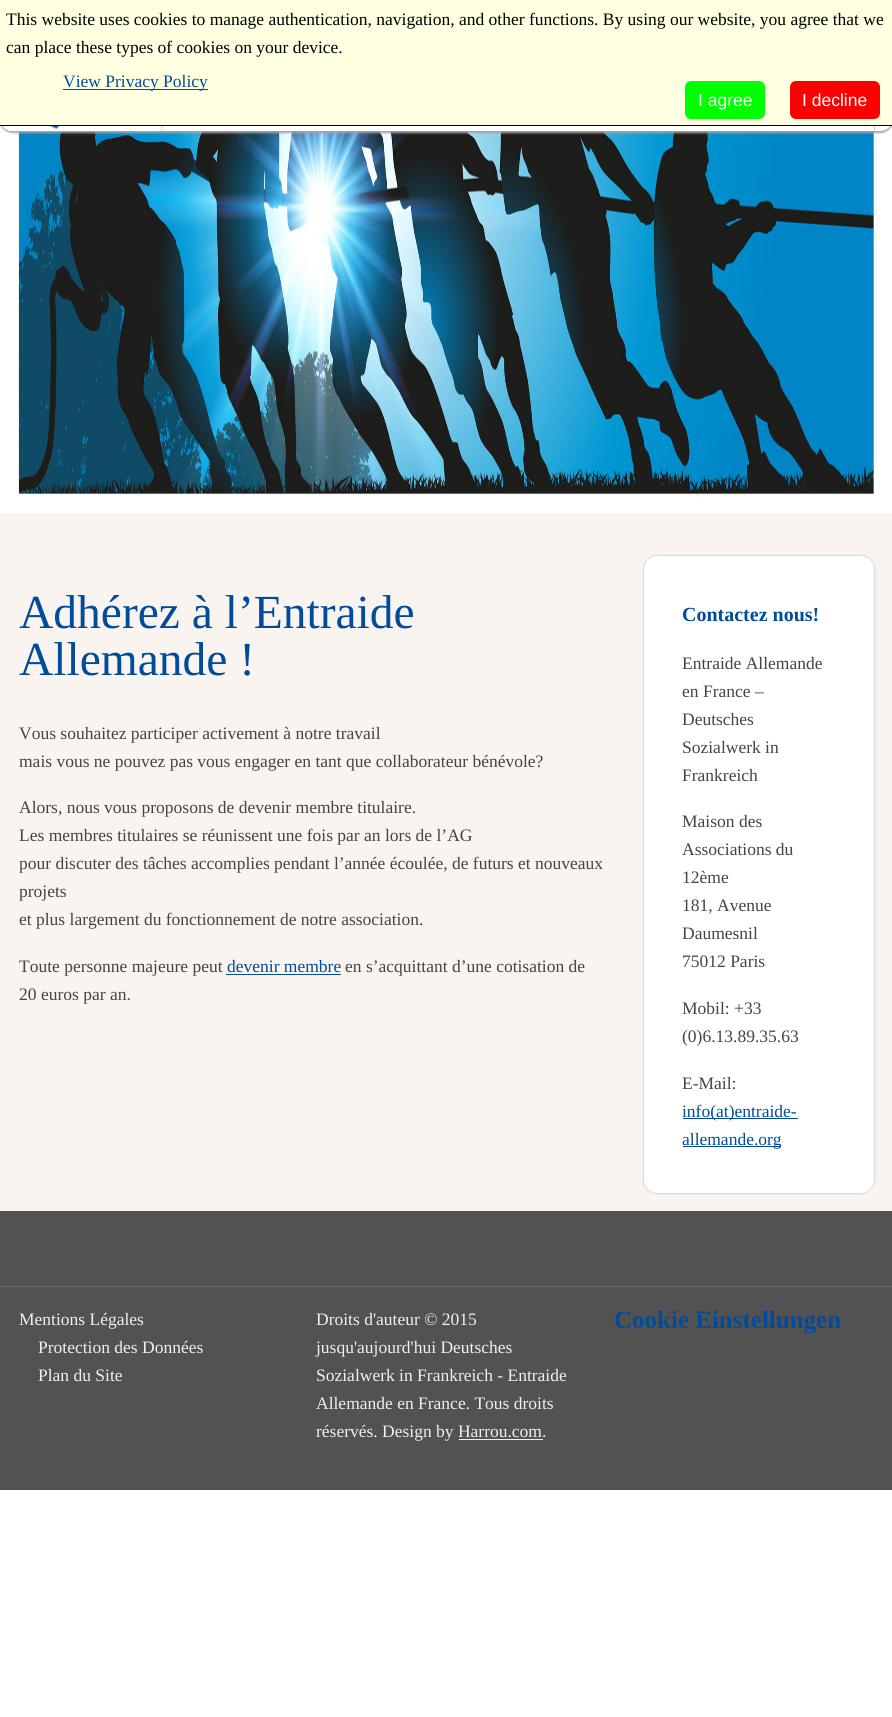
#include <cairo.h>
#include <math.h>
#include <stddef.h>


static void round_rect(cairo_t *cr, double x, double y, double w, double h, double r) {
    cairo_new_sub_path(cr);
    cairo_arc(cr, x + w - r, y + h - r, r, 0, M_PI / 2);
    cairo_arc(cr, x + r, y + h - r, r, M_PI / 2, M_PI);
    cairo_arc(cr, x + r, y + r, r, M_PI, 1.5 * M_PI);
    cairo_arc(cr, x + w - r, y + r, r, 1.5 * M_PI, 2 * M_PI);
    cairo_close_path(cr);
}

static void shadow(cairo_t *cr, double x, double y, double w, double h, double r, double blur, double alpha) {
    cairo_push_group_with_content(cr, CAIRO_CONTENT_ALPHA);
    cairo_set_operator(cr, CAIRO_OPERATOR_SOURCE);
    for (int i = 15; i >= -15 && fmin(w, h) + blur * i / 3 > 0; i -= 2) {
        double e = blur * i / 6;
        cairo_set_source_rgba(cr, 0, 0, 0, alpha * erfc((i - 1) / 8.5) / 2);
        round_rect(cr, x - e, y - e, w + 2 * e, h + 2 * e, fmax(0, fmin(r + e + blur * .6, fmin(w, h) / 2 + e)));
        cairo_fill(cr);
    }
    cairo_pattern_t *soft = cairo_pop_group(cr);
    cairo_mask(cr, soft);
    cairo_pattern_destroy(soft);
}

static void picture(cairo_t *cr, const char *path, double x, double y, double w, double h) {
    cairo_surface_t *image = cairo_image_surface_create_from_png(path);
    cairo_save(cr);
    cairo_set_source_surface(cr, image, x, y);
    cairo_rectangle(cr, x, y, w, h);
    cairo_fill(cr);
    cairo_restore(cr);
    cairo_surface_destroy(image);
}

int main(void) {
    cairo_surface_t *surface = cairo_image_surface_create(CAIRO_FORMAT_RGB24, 892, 1717);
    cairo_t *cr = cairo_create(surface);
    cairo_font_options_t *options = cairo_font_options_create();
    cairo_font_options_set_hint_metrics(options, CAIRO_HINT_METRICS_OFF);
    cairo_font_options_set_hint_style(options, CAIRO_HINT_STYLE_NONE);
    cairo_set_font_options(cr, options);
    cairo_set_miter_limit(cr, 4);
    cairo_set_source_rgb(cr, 1, 1, 1);
    cairo_paint(cr);
    cairo_set_source_rgb(cr, 0.8, 0.8, 0.8);
    cairo_rectangle(cr, 19, 131, 855, 363);
    cairo_fill(cr);
    picture(cr, "img2.png", 18, 131, 856, 363);
    cairo_set_source_rgb(cr, 0.651, 0.639, 0.627);
    shadow(cr, -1, 18, 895, 115, 14, 1, 1);
    cairo_set_source_rgb(cr, 1, 1, 1);
    round_rect(cr, 0, 19, 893, 112, 13);
    cairo_fill(cr);
    cairo_set_source_rgb(cr, 0.8, 0.8, 0.8);
    cairo_new_path(cr);
    cairo_move_to(cr, 166, 123);
    cairo_curve_to(cr, 161, 123, 161, 127, 161, 131);
    cairo_line_to(cr, 162, 131);
    cairo_curve_to(cr, 162, 128, 162, 124, 166, 124);
    cairo_line_to(cr, 870, 124);
    cairo_curve_to(cr, 874, 124, 874, 128, 874, 131);
    cairo_line_to(cr, 875, 131);
    cairo_curve_to(cr, 875, 127, 875, 123, 870, 123);
    cairo_close_path(cr);
    cairo_fill(cr);
    cairo_set_source_rgb(cr, 1, 1, 0.882);
    cairo_rectangle(cr, 0, 0, 892, 125);
    cairo_fill(cr);
    cairo_set_source_rgb(cr, 0, 0, 0);
    cairo_rectangle(cr, 0, 125, 892, 1);
    cairo_fill(cr);
    cairo_select_font_face(cr, "Liberation Serif", CAIRO_FONT_SLANT_NORMAL, CAIRO_FONT_WEIGHT_NORMAL);
    cairo_set_font_size(cr, 17.5);
    cairo_move_to(cr, 6, 25);
    cairo_show_text(cr, "This website uses cookies to manage authentication, navigation, and other functions. By using our website, you agree that we");
    cairo_move_to(cr, 6, 53);
    cairo_show_text(cr, "can place these types of cookies on your device.");
    cairo_set_source_rgb(cr, 0, 0.294, 0.604);
    cairo_rectangle(cr, 63, 89, 145, 1);
    cairo_fill(cr);
    cairo_move_to(cr, 63, 87);
    cairo_show_text(cr, "View Privacy Policy");
    cairo_set_source_rgb(cr, 0, 1, 0);
    round_rect(cr, 685, 81, 80, 38, 6);
    cairo_fill(cr);
    cairo_select_font_face(cr, "Liberation Sans", CAIRO_FONT_SLANT_NORMAL, CAIRO_FONT_WEIGHT_NORMAL);
    cairo_set_source_rgb(cr, 1, 1, 1);
    cairo_move_to(cr, 698, 106);
    cairo_show_text(cr, "I agree");
    cairo_set_source_rgb(cr, 1, 0, 0);
    round_rect(cr, 790, 81, 90, 38, 6);
    cairo_fill(cr);
    cairo_set_source_rgb(cr, 1, 1, 1);
    cairo_move_to(cr, 802, 106);
    cairo_show_text(cr, "I decline");
    picture(cr, "img1.png", 2, 126, 160, 6);
    cairo_set_source_rgb(cr, 0.976, 0.957, 0.941);
    cairo_rectangle(cr, 0, 513, 892, 698);
    cairo_fill(cr);
    cairo_select_font_face(cr, "Liberation Serif", CAIRO_FONT_SLANT_NORMAL, CAIRO_FONT_WEIGHT_NORMAL);
    cairo_set_font_size(cr, 47.5);
    cairo_set_source_rgb(cr, 0, 0.294, 0.604);
    cairo_move_to(cr, 19, 628);
    cairo_show_text(cr, "Adhérez à l’Entraide");
    cairo_move_to(cr, 19, 675);
    cairo_show_text(cr, "Allemande !");
    cairo_set_font_size(cr, 17.5);
    cairo_set_source_rgb(cr, 0.267, 0.267, 0.267);
    cairo_move_to(cr, 19, 739);
    cairo_show_text(cr, "Vous souhaitez participer activement à notre travail");
    cairo_move_to(cr, 19, 767);
    cairo_show_text(cr, "mais vous ne pouvez pas vous engager en tant que collaborateur bénévole?");
    cairo_move_to(cr, 19, 813);
    cairo_show_text(cr, "Alors, nous vous proposons de devenir membre titulaire.");
    cairo_move_to(cr, 19, 841);
    cairo_show_text(cr, "Les membres titulaires se réunissent une fois par an lors de l’AG");
    cairo_move_to(cr, 19, 869);
    cairo_show_text(cr, "pour discuter des tâches accomplies pendant l’année écoulée, de futurs et nouveaux");
    cairo_move_to(cr, 19, 897);
    cairo_show_text(cr, "projets");
    cairo_move_to(cr, 19, 925);
    cairo_show_text(cr, "et plus largement du fonctionnement de notre association.");
    cairo_move_to(cr, 19, 972);
    cairo_show_text(cr, "Toute personne majeure peut");
    cairo_set_source_rgb(cr, 0, 0.294, 0.604);
    cairo_move_to(cr, 227, 972);
    cairo_show_text(cr, "devenir membre");
    cairo_rectangle(cr, 226, 974, 115, 1);
    cairo_fill(cr);
    cairo_set_source_rgb(cr, 0.267, 0.267, 0.267);
    cairo_move_to(cr, 345, 972);
    cairo_show_text(cr, "en s’acquittant d’une cotisation de");
    cairo_move_to(cr, 19, 1000);
    cairo_show_text(cr, "20 euros par an.");
    cairo_set_source_rgb(cr, 0.651, 0.639, 0.627);
    shadow(cr, 644, 556, 230, 637, 13, 1, 1);
    cairo_set_source_rgb(cr, 1, 1, 1);
    round_rect(cr, 644.5, 556.5, 229, 636, 12.5);
    cairo_fill_preserve(cr);
    cairo_set_line_width(cr, 1);
    cairo_stroke(cr);
    cairo_select_font_face(cr, "Liberation Serif", CAIRO_FONT_SLANT_NORMAL, CAIRO_FONT_WEIGHT_BOLD);
    cairo_set_font_size(cr, 20);
    cairo_set_source_rgb(cr, 0, 0.294, 0.604);
    cairo_move_to(cr, 682, 621);
    cairo_show_text(cr, "Contactez nous!");
    cairo_select_font_face(cr, "Liberation Serif", CAIRO_FONT_SLANT_NORMAL, CAIRO_FONT_WEIGHT_NORMAL);
    cairo_set_font_size(cr, 17.5);
    cairo_set_source_rgb(cr, 0.267, 0.267, 0.267);
    cairo_move_to(cr, 682, 669);
    cairo_show_text(cr, "Entraide Allemande");
    cairo_move_to(cr, 682, 697);
    cairo_show_text(cr, "en France –");
    cairo_move_to(cr, 682, 725);
    cairo_show_text(cr, "Deutsches");
    cairo_move_to(cr, 682, 753);
    cairo_show_text(cr, "Sozialwerk in");
    cairo_move_to(cr, 682, 781);
    cairo_show_text(cr, "Frankreich");
    cairo_move_to(cr, 682, 827);
    cairo_show_text(cr, "Maison des");
    cairo_move_to(cr, 682, 855);
    cairo_show_text(cr, "Associations du");
    cairo_move_to(cr, 682, 883);
    cairo_show_text(cr, "12ème");
    cairo_move_to(cr, 682, 911);
    cairo_show_text(cr, "181, Avenue");
    cairo_move_to(cr, 682, 939);
    cairo_show_text(cr, "Daumesnil");
    cairo_move_to(cr, 682, 967);
    cairo_show_text(cr, "75012 Paris");
    cairo_move_to(cr, 682, 1014);
    cairo_show_text(cr, "Mobil: +33");
    cairo_move_to(cr, 682, 1042);
    cairo_show_text(cr, "(0)6.13.89.35.63");
    cairo_move_to(cr, 682, 1089);
    cairo_show_text(cr, "E-Mail:");
    cairo_set_source_rgb(cr, 0, 0.294, 0.604);
    cairo_rectangle(cr, 683, 1118, 115, 1);
    cairo_fill(cr);
    cairo_move_to(cr, 682, 1117);
    cairo_show_text(cr, "info(at)entraide-");
    cairo_rectangle(cr, 683, 1146, 98, 1);
    cairo_fill(cr);
    cairo_move_to(cr, 682, 1145);
    cairo_show_text(cr, "allemande.org");
    cairo_set_source_rgb(cr, 0.322, 0.322, 0.322);
    cairo_rectangle(cr, 0, 1211, 892, 279);
    cairo_fill(cr);
    cairo_set_source_rgb(cr, 0.42, 0.42, 0.416);
    cairo_rectangle(cr, 0, 1286, 892, 1);
    cairo_fill(cr);
    cairo_set_source_rgb(cr, 0.953, 0.933, 0.918);
    cairo_move_to(cr, 19, 1325);
    cairo_show_text(cr, "Mentions Légales");
    cairo_move_to(cr, 38, 1353);
    cairo_show_text(cr, "Protection des Données");
    cairo_move_to(cr, 38, 1381);
    cairo_show_text(cr, "Plan du Site");
    cairo_move_to(cr, 316, 1325);
    cairo_show_text(cr, "Droits d'auteur © 2015");
    cairo_move_to(cr, 316, 1353);
    cairo_show_text(cr, "jusqu'aujourd'hui Deutsches");
    cairo_move_to(cr, 316, 1381);
    cairo_show_text(cr, "Sozialwerk in Frankreich - Entraide");
    cairo_move_to(cr, 316, 1409);
    cairo_show_text(cr, "Allemande en France. Tous droits");
    cairo_move_to(cr, 316, 1437);
    cairo_show_text(cr, "réservés. Design by Harrou.com.");
    cairo_rectangle(cr, 459, 1439, 84, 1);
    cairo_fill(cr);
    cairo_select_font_face(cr, "Liberation Serif", CAIRO_FONT_SLANT_NORMAL, CAIRO_FONT_WEIGHT_BOLD);
    cairo_set_font_size(cr, 25);
    cairo_set_source_rgb(cr, 0, 0.294, 0.604);
    cairo_move_to(cr, 614, 1328);
    cairo_show_text(cr, "Cookie Einstellungen");
    cairo_surface_write_to_png(surface, "page.png");
    cairo_font_options_destroy(options);
    cairo_destroy(cr);
    cairo_surface_destroy(surface);
    return 0;
}
